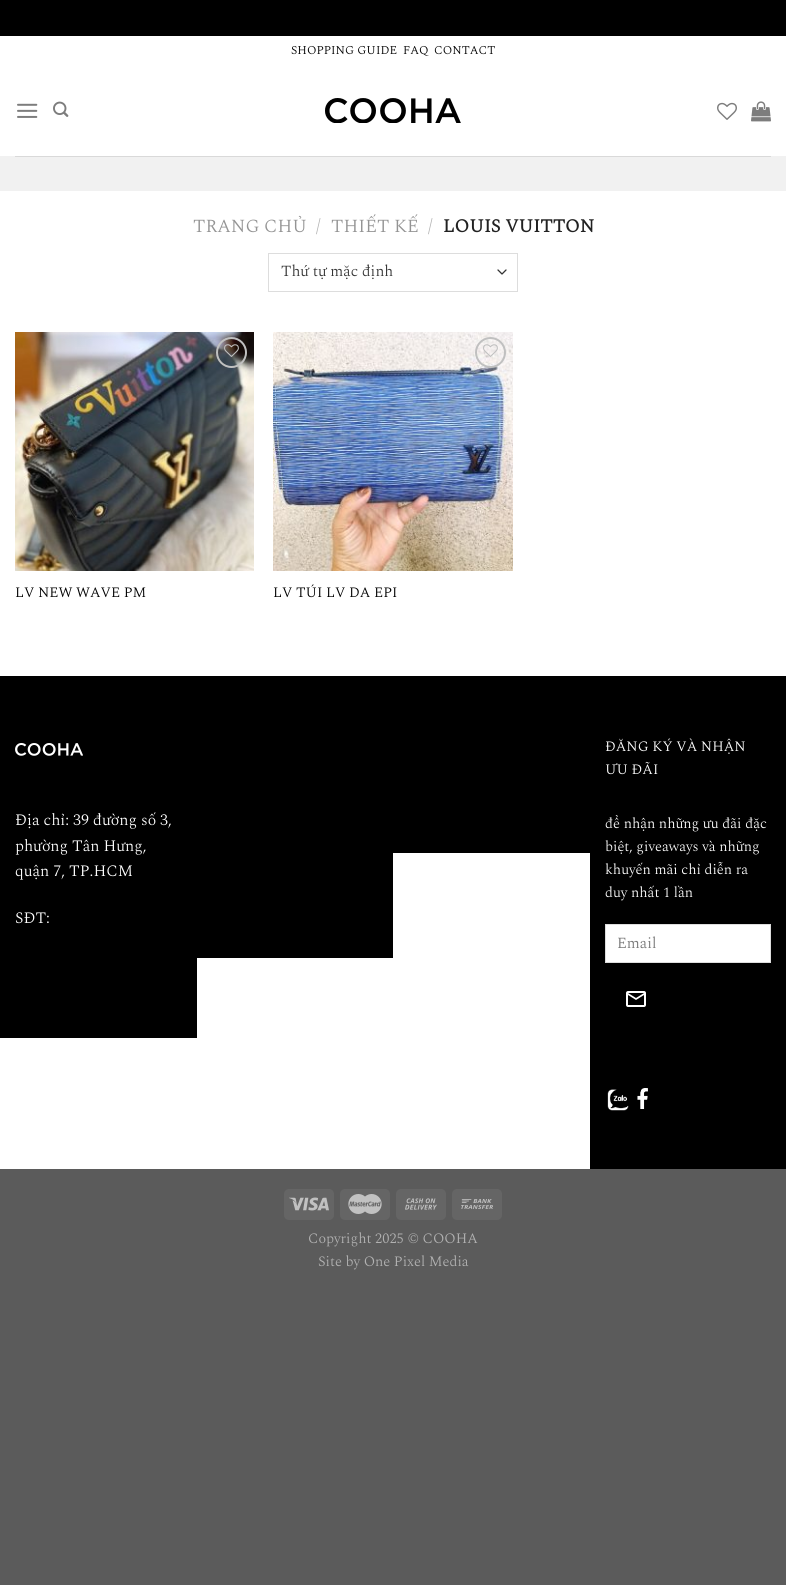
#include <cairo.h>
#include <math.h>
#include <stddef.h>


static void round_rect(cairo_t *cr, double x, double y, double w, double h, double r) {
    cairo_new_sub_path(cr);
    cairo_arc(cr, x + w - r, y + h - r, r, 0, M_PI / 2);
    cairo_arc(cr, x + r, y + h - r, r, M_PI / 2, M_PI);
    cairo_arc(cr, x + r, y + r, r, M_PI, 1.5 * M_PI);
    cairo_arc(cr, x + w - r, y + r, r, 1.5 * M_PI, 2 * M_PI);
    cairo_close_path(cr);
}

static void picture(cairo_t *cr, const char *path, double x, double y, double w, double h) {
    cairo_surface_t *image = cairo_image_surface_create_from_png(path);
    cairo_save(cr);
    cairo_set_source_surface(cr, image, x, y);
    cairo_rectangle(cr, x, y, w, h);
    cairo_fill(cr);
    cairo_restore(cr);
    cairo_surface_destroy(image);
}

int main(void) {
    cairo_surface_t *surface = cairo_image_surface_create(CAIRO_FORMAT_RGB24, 786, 1585);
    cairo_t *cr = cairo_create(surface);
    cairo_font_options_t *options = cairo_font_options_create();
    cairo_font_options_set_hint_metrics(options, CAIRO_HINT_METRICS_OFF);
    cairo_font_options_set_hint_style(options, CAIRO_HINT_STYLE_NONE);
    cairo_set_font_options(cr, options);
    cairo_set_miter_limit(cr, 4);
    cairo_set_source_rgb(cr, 0.357, 0.357, 0.357);
    cairo_paint(cr);
    cairo_set_source_rgb(cr, 0, 0, 0);
    cairo_rectangle(cr, 0, 0, 786, 36);
    cairo_fill(cr);
    cairo_set_source_rgb(cr, 1, 1, 1);
    cairo_rectangle(cr, 0, 36, 786, 1133);
    cairo_fill(cr);
    cairo_select_font_face(cr, "Spectral Light", CAIRO_FONT_SLANT_NORMAL, CAIRO_FONT_WEIGHT_NORMAL);
    cairo_set_font_size(cr, 12);
    cairo_set_source_rgb(cr, 0, 0, 0);
    cairo_move_to(cr, 291, 54);
    cairo_show_text(cr, "SHOPPING GUIDE");
    cairo_move_to(cr, 403, 54);
    cairo_show_text(cr, "FAQ");
    cairo_move_to(cr, 434, 54);
    cairo_show_text(cr, "CONTACT");
    picture(cr, "img1.png", 17, 103, 21, 15);
    picture(cr, "img2.png", 53, 101, 16, 16);
    picture(cr, "img3.png", 325, 98, 136, 25);
    picture(cr, "img4.png", 717, 102, 20, 18);
    picture(cr, "img5.png", 751, 101, 20, 21);
    cairo_set_source_rgb(cr, 0.945, 0.945, 0.945);
    cairo_rectangle(cr, 0, 156, 786, 35);
    cairo_fill(cr);
    cairo_set_source_rgb(cr, 0.851, 0.851, 0.851);
    cairo_rectangle(cr, 15, 156, 756, 1);
    cairo_fill(cr);
    cairo_set_font_size(cr, 18.5);
    cairo_set_source_rgb(cr, 0.58, 0.58, 0.58);
    cairo_move_to(cr, 193, 232);
    cairo_show_text(cr, "TRANG CHỦ");
    cairo_set_source_rgb(cr, 0.698, 0.698, 0.698);
    cairo_move_to(cr, 316, 232);
    cairo_show_text(cr, "/");
    cairo_set_source_rgb(cr, 0.58, 0.58, 0.58);
    cairo_move_to(cr, 331, 232);
    cairo_show_text(cr, "THIẾT KẾ");
    cairo_set_source_rgb(cr, 0.698, 0.698, 0.698);
    cairo_move_to(cr, 428, 232);
    cairo_show_text(cr, "/");
    cairo_select_font_face(cr, "Spectral", CAIRO_FONT_SLANT_NORMAL, CAIRO_FONT_WEIGHT_BOLD);
    cairo_set_source_rgb(cr, 0.133, 0.133, 0.133);
    cairo_move_to(cr, 443, 232);
    cairo_show_text(cr, "LOUIS VUITTON");
    cairo_new_path(cr);
    cairo_move_to(cr, 498, 270);
    cairo_line_to(cr, 502, 274);
    cairo_line_to(cr, 506, 270);
    cairo_set_source_rgb(cr, 0.2, 0.2, 0.2);
    cairo_set_line_width(cr, 1.3);
    cairo_set_line_cap(cr, CAIRO_LINE_CAP_ROUND);
    cairo_set_line_join(cr, CAIRO_LINE_JOIN_ROUND);
    cairo_stroke(cr);
    cairo_rectangle(cr, 268.5, 253.5, 249, 38);
    cairo_set_source_rgb(cr, 0.867, 0.867, 0.867);
    cairo_set_line_width(cr, 1);
    cairo_set_line_cap(cr, CAIRO_LINE_CAP_BUTT);
    cairo_set_line_join(cr, CAIRO_LINE_JOIN_MITER);
    cairo_stroke(cr);
    cairo_select_font_face(cr, "Spectral Light", CAIRO_FONT_SLANT_NORMAL, CAIRO_FONT_WEIGHT_NORMAL);
    cairo_set_font_size(cr, 15.5);
    cairo_set_source_rgb(cr, 0.2, 0.2, 0.2);
    cairo_move_to(cr, 281, 276);
    cairo_show_text(cr, "Thứ tự mặc định");
    picture(cr, "img6.png", 15, 332, 239, 239);
    cairo_arc(cr, 231.5, 352.5, 14.5, 0, 2 * M_PI);
    cairo_set_source_rgb(cr, 0.753, 0.753, 0.753);
    cairo_set_line_width(cr, 2);
    cairo_stroke(cr);
    picture(cr, "img7.png", 224, 344, 15, 13);
    cairo_set_font_size(cr, 14.4);
    cairo_set_source_rgb(cr, 0, 0, 0);
    cairo_move_to(cr, 15, 597);
    cairo_show_text(cr, "LV NEW WAVE PM");
    picture(cr, "img8.png", 273, 332, 240, 239);
    cairo_arc(cr, 490.5, 352.5, 14.5, 0, 2 * M_PI);
    cairo_set_source_rgb(cr, 0.753, 0.753, 0.753);
    cairo_stroke(cr);
    picture(cr, "img9.png", 483, 344, 15, 13);
    cairo_set_source_rgb(cr, 0, 0, 0);
    cairo_move_to(cr, 273, 597);
    cairo_show_text(cr, "LV TÚI LV DA EPI");
    cairo_rectangle(cr, 0, 676, 197, 362);
    cairo_fill(cr);
    picture(cr, "img10.png", 15, 743, 68, 13);
    cairo_set_font_size(cr, 16);
    cairo_set_source_rgb(cr, 1, 1, 1);
    cairo_move_to(cr, 15, 825);
    cairo_show_text(cr, "Địa chỉ: 39 đường số 3,");
    cairo_move_to(cr, 15, 851);
    cairo_show_text(cr, "phường Tân Hưng,");
    cairo_move_to(cr, 15, 876);
    cairo_show_text(cr, "quận 7, TP.HCM");
    cairo_move_to(cr, 15, 923);
    cairo_show_text(cr, "SĐT:");
    cairo_set_source_rgb(cr, 0, 0, 0);
    cairo_rectangle(cr, 197, 676, 196, 282);
    cairo_fill(cr);
    cairo_rectangle(cr, 393, 676, 197, 177);
    cairo_fill(cr);
    cairo_rectangle(cr, 590, 676, 196, 493);
    cairo_fill(cr);
    cairo_set_font_size(cr, 14.4);
    cairo_set_source_rgb(cr, 1, 1, 1);
    cairo_move_to(cr, 605, 751);
    cairo_show_text(cr, "ĐĂNG KÝ VÀ NHẬN");
    cairo_move_to(cr, 605, 774);
    cairo_show_text(cr, "ƯU ĐÃI");
    cairo_move_to(cr, 605, 828);
    cairo_show_text(cr, "để nhận những ưu đãi đặc");
    cairo_move_to(cr, 605, 851);
    cairo_show_text(cr, "biệt, giveaways và những");
    cairo_move_to(cr, 605, 874);
    cairo_show_text(cr, "khuyến mãi chỉ diễn ra");
    cairo_move_to(cr, 605, 897);
    cairo_show_text(cr, "duy nhất 1 lần");
    cairo_rectangle(cr, 605.5, 924.5, 165, 38);
    cairo_fill_preserve(cr);
    cairo_set_source_rgb(cr, 0.867, 0.867, 0.867);
    cairo_set_line_width(cr, 1);
    cairo_stroke(cr);
    cairo_set_font_size(cr, 15.5);
    cairo_set_source_rgb(cr, 0.459, 0.459, 0.459);
    cairo_move_to(cr, 617, 948);
    cairo_show_text(cr, "Email");
    picture(cr, "img11.png", 626, 991, 20, 16);
    picture(cr, "img12.png", 607, 1089, 22, 22);
    picture(cr, "img13.png", 637, 1088, 11, 21);
    cairo_set_source_rgb(cr, 0.396, 0.396, 0.396);
    round_rect(cr, 284, 1189, 50, 31, 5);
    cairo_fill(cr);
    picture(cr, "img14.png", 289, 1197, 40, 14);
    round_rect(cr, 340, 1189, 50, 31, 5);
    cairo_fill(cr);
    picture(cr, "img15.png", 348, 1194, 34, 20);
    round_rect(cr, 396, 1189, 50, 31, 5);
    cairo_fill(cr);
    picture(cr, "img16.png", 405, 1198, 32, 12);
    round_rect(cr, 452, 1189, 50, 31, 5);
    cairo_fill(cr);
    picture(cr, "img17.png", 461, 1199, 32, 10);
    cairo_set_font_size(cr, 14.4);
    cairo_set_source_rgb(cr, 0.698, 0.698, 0.698);
    cairo_move_to(cr, 308, 1243);
    cairo_show_text(cr, "Copyright 2025 © COOHA");
    cairo_move_to(cr, 318, 1266);
    cairo_show_text(cr, "Site by One Pixel Media");
    cairo_surface_write_to_png(surface, "page.png");
    cairo_font_options_destroy(options);
    cairo_destroy(cr);
    cairo_surface_destroy(surface);
    return 0;
}
